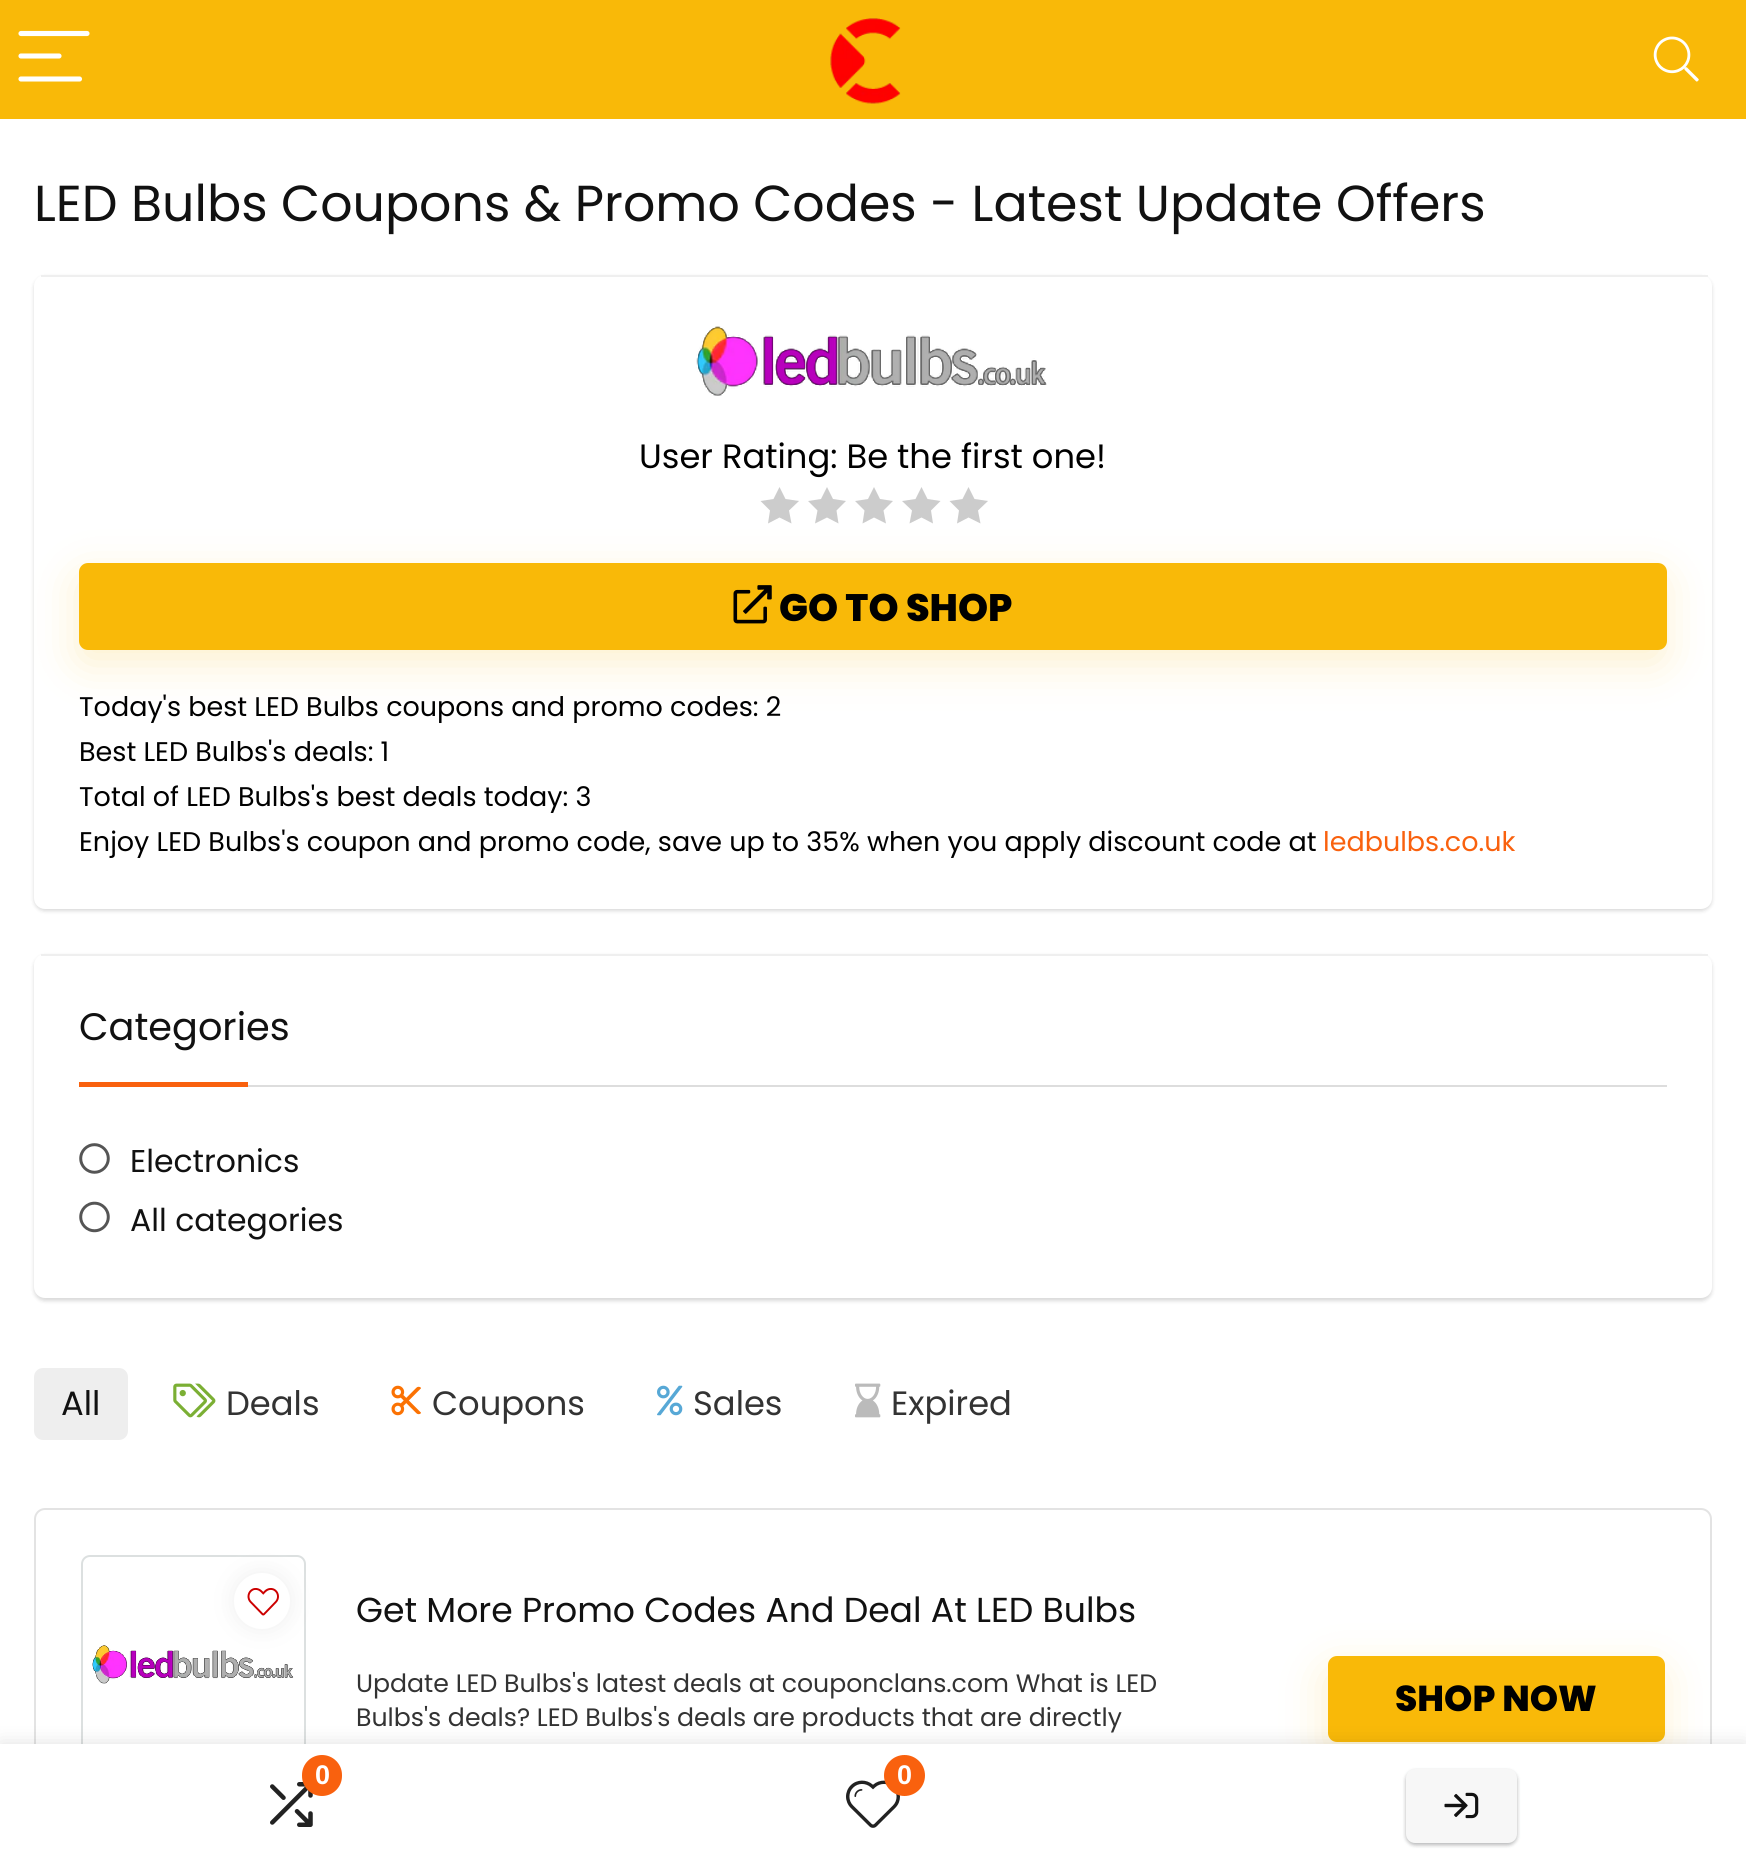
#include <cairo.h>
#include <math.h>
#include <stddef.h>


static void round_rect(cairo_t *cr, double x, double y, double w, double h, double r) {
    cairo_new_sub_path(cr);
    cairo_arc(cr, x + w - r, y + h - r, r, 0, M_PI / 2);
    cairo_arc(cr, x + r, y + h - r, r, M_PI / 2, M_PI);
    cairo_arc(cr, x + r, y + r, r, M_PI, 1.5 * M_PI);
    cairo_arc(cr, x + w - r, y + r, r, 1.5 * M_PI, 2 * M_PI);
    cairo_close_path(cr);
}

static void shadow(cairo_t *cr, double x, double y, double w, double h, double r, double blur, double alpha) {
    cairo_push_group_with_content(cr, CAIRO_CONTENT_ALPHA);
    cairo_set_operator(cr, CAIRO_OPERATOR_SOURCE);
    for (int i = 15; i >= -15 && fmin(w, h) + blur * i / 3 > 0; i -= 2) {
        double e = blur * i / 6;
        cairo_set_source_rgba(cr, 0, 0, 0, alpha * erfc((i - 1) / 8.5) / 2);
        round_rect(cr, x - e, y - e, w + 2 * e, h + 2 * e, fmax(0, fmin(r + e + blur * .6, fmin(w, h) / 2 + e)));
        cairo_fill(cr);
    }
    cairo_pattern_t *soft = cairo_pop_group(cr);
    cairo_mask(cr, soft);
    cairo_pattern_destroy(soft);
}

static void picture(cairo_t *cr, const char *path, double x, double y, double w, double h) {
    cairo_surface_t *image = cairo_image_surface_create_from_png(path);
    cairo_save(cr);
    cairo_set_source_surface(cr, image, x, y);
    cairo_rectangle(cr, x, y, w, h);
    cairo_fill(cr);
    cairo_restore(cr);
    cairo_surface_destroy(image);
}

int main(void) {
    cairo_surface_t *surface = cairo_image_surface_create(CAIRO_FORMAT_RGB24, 1746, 1866);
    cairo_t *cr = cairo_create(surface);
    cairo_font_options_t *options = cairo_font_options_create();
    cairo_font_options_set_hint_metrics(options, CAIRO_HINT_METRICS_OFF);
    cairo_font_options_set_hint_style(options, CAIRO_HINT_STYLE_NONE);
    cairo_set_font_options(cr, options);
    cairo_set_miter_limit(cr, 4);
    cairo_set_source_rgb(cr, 1, 1, 1);
    cairo_paint(cr);
    cairo_select_font_face(cr, "Poppins", CAIRO_FONT_SLANT_NORMAL, CAIRO_FONT_WEIGHT_NORMAL);
    cairo_set_font_size(cr, 50.6);
    cairo_set_source_rgb(cr, 0.067, 0.067, 0.067);
    cairo_move_to(cr, 34, 221);
    cairo_show_text(cr, "LED Bulbs Coupons & Promo Codes - Latest Update Offers");
    cairo_set_source_rgb(cr, 0, 0, 0);
    shadow(cr, 34, 277, 1678, 634, 11, 2, 0.15);
    cairo_set_source_rgb(cr, 1, 1, 1);
    round_rect(cr, 34, 275, 1678, 634, 11);
    cairo_fill(cr);
    cairo_set_source_rgb(cr, 0.937, 0.937, 0.937);
    cairo_rectangle(cr, 41, 275, 1667, 2);
    cairo_fill(cr);
    picture(cr, "img1.png", 696, 326, 351, 70);
    cairo_set_font_size(cr, 33.75);
    cairo_set_source_rgb(cr, 0, 0, 0);
    cairo_move_to(cr, 639, 468);
    cairo_show_text(cr, "User Rating: Be the first one!");
    cairo_set_source_rgb(cr, 0.8, 0.8, 0.8);
    cairo_new_path(cr);
    cairo_move_to(cr, 799, 501);
    cairo_line_to(cr, 785.5, 499);
    cairo_line_to(cr, 779.5, 487);
    cairo_line_to(cr, 773.5, 499);
    cairo_line_to(cr, 760.5, 501);
    cairo_line_to(cr, 770, 510.5);
    cairo_line_to(cr, 768, 523.5);
    cairo_line_to(cr, 779.5, 517.5);
    cairo_line_to(cr, 791.5, 523.5);
    cairo_line_to(cr, 789, 510.5);
    cairo_close_path(cr);
    cairo_fill(cr);
    cairo_new_path(cr);
    cairo_move_to(cr, 846, 501);
    cairo_line_to(cr, 833, 499);
    cairo_line_to(cr, 827, 487);
    cairo_line_to(cr, 821, 499);
    cairo_line_to(cr, 808, 501);
    cairo_line_to(cr, 817.5, 510.5);
    cairo_line_to(cr, 815, 523.5);
    cairo_line_to(cr, 827, 517.5);
    cairo_line_to(cr, 838.5, 523.5);
    cairo_line_to(cr, 836.5, 510.5);
    cairo_close_path(cr);
    cairo_fill(cr);
    cairo_new_path(cr);
    cairo_move_to(cr, 893, 501);
    cairo_line_to(cr, 880, 499);
    cairo_line_to(cr, 874, 487);
    cairo_line_to(cr, 868, 499);
    cairo_line_to(cr, 855, 501);
    cairo_line_to(cr, 864.5, 510.5);
    cairo_line_to(cr, 862.5, 523.5);
    cairo_line_to(cr, 874, 517.5);
    cairo_line_to(cr, 886, 523.5);
    cairo_line_to(cr, 883.5, 510.5);
    cairo_close_path(cr);
    cairo_fill(cr);
    cairo_new_path(cr);
    cairo_move_to(cr, 940.5, 501);
    cairo_line_to(cr, 927.5, 499);
    cairo_line_to(cr, 921.5, 487);
    cairo_line_to(cr, 915.5, 499);
    cairo_line_to(cr, 902, 501);
    cairo_line_to(cr, 912, 510.5);
    cairo_line_to(cr, 909.5, 523.5);
    cairo_line_to(cr, 921.5, 517.5);
    cairo_line_to(cr, 933, 523.5);
    cairo_line_to(cr, 931, 510.5);
    cairo_close_path(cr);
    cairo_fill(cr);
    cairo_new_path(cr);
    cairo_move_to(cr, 988, 501);
    cairo_line_to(cr, 974.5, 499);
    cairo_line_to(cr, 968.5, 487);
    cairo_line_to(cr, 962.5, 499);
    cairo_line_to(cr, 949.5, 501);
    cairo_line_to(cr, 959, 510.5);
    cairo_line_to(cr, 957, 523.5);
    cairo_line_to(cr, 968.5, 517.5);
    cairo_line_to(cr, 980.5, 523.5);
    cairo_line_to(cr, 978, 510.5);
    cairo_close_path(cr);
    cairo_fill(cr);
    cairo_set_source_rgb(cr, 0.976, 0.725, 0.035);
    shadow(cr, 77, 576, 1588, 88, 9, 21.5, 0.2);
    cairo_set_source_rgb(cr, 0.976, 0.725, 0.035);
    round_rect(cr, 79, 563, 1588, 87, 9);
    cairo_fill(cr);
    picture(cr, "img2.png", 733, 585, 39, 39);
    cairo_select_font_face(cr, "Poppins ExtraBold", CAIRO_FONT_SLANT_NORMAL, CAIRO_FONT_WEIGHT_NORMAL);
    cairo_set_font_size(cr, 38.25);
    cairo_set_source_rgb(cr, 0, 0, 0);
    cairo_move_to(cr, 779, 621);
    cairo_show_text(cr, "GO TO SHOP");
    cairo_select_font_face(cr, "Poppins", CAIRO_FONT_SLANT_NORMAL, CAIRO_FONT_WEIGHT_NORMAL);
    cairo_set_font_size(cr, 27);
    cairo_move_to(cr, 79, 716);
    cairo_show_text(cr, "Today's best LED Bulbs coupons and promo codes: 2");
    cairo_move_to(cr, 79, 761);
    cairo_show_text(cr, "Best LED Bulbs's deals: 1");
    cairo_move_to(cr, 79, 806);
    cairo_show_text(cr, "Total of LED Bulbs's best deals today: 3");
    cairo_move_to(cr, 79, 851);
    cairo_show_text(cr, "Enjoy LED Bulbs's coupon and promo code, save up to 35% when you apply discount code at");
    cairo_set_source_rgb(cr, 0.976, 0.38, 0.055);
    cairo_move_to(cr, 1323, 851);
    cairo_show_text(cr, "ledbulbs.co.uk");
    cairo_set_source_rgb(cr, 0, 0, 0);
    shadow(cr, 34, 956, 1678, 345, 11, 2, 0.15);
    cairo_set_source_rgb(cr, 1, 1, 1);
    round_rect(cr, 34, 954, 1678, 344, 11);
    cairo_fill(cr);
    cairo_set_source_rgb(cr, 0.937, 0.937, 0.937);
    cairo_rectangle(cr, 41, 954, 1667, 2);
    cairo_fill(cr);
    cairo_set_source_rgb(cr, 0.867, 0.867, 0.867);
    cairo_rectangle(cr, 248, 1085, 1419, 2);
    cairo_fill(cr);
    cairo_set_font_size(cr, 38.25);
    cairo_set_source_rgb(cr, 0.067, 0.067, 0.067);
    cairo_move_to(cr, 79, 1040);
    cairo_show_text(cr, "Categories");
    cairo_set_source_rgb(cr, 0.976, 0.38, 0.055);
    cairo_rectangle(cr, 79, 1082, 169, 5);
    cairo_fill(cr);
    picture(cr, "img3.png", 79, 1143, 31, 31);
    cairo_set_font_size(cr, 31.5);
    cairo_set_source_rgb(cr, 0.067, 0.067, 0.067);
    cairo_move_to(cr, 130, 1172);
    cairo_show_text(cr, "Electronics");
    picture(cr, "img4.png", 79, 1201, 31, 32);
    cairo_move_to(cr, 130, 1231);
    cairo_show_text(cr, "All categories");
    cairo_set_source_rgb(cr, 0.933, 0.933, 0.933);
    round_rect(cr, 34, 1368, 94, 72, 9);
    cairo_fill(cr);
    cairo_set_font_size(cr, 33.75);
    cairo_set_source_rgb(cr, 0.067, 0.067, 0.067);
    cairo_move_to(cr, 61, 1415);
    cairo_show_text(cr, "All");
    picture(cr, "img5.png", 173, 1383, 43, 35);
    cairo_set_source_rgb(cr, 0.2, 0.2, 0.2);
    cairo_move_to(cr, 226, 1415);
    cairo_show_text(cr, "Deals");
    picture(cr, "img6.png", 391, 1385, 30, 31);
    cairo_move_to(cr, 432, 1415);
    cairo_show_text(cr, "Coupons");
    picture(cr, "img7.png", 657, 1385, 26, 31);
    cairo_move_to(cr, 693, 1415);
    cairo_show_text(cr, "Sales");
    picture(cr, "img8.png", 855, 1383, 26, 35);
    cairo_move_to(cr, 891, 1415);
    cairo_show_text(cr, "Expired");
    round_rect(cr, 35, 1509, 1676, 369, 10);
    cairo_set_source_rgb(cr, 0.89, 0.89, 0.89);
    cairo_stroke(cr);
    round_rect(cr, 82, 1556, 223, 286, 8);
    cairo_set_source_rgb(cr, 0.863, 0.878, 0.878);
    cairo_stroke(cr);
    cairo_set_source_rgb(cr, 0.937, 0.937, 0.937);
    shadow(cr, 234, 1573, 56, 56, 28, 11, 1);
    cairo_set_source_rgb(cr, 1, 1, 1);
    cairo_arc(cr, 262, 1601, 28, 0, 2 * M_PI);
    cairo_fill(cr);
    picture(cr, "img9.png", 247, 1588, 32, 28);
    picture(cr, "img10.png", 92, 1645, 202, 39);
    cairo_set_font_size(cr, 34.65);
    cairo_set_source_rgb(cr, 0.067, 0.067, 0.067);
    cairo_move_to(cr, 356, 1622);
    cairo_show_text(cr, "Get More Promo Codes And Deal At LED Bulbs");
    cairo_set_font_size(cr, 25.2);
    cairo_set_source_rgb(cr, 0.2, 0.2, 0.2);
    cairo_move_to(cr, 356, 1692);
    cairo_show_text(cr, "Update LED Bulbs's latest deals at couponclans.com What is LED");
    cairo_move_to(cr, 356, 1726);
    cairo_show_text(cr, "Bulbs's deals? LED Bulbs's deals are products that are directly");
    cairo_set_source_rgb(cr, 0.976, 0.725, 0.035);
    shadow(cr, 1325, 1670, 338, 85, 9, 21.5, 0.2);
    cairo_set_source_rgb(cr, 0.976, 0.725, 0.035);
    round_rect(cr, 1328, 1656, 337, 86, 9);
    cairo_fill(cr);
    cairo_select_font_face(cr, "Poppins ExtraBold", CAIRO_FONT_SLANT_NORMAL, CAIRO_FONT_WEIGHT_NORMAL);
    cairo_set_font_size(cr, 36);
    cairo_set_source_rgb(cr, 0, 0, 0);
    cairo_move_to(cr, 1395, 1711);
    cairo_show_text(cr, "SHOP NOW");
    cairo_set_source_rgb(cr, 0.976, 0.725, 0.035);
    cairo_rectangle(cr, 0, 0, 1746, 119);
    cairo_fill(cr);
    cairo_new_path(cr);
    cairo_move_to(cr, 21, 33.5);
    cairo_line_to(cr, 87, 33.5);
    cairo_set_source_rgb(cr, 1, 1, 1);
    cairo_set_line_width(cr, 5.1);
    cairo_set_line_cap(cr, CAIRO_LINE_CAP_ROUND);
    cairo_stroke(cr);
    cairo_new_path(cr);
    cairo_move_to(cr, 21, 56);
    cairo_line_to(cr, 59, 56);
    cairo_stroke(cr);
    cairo_new_path(cr);
    cairo_move_to(cr, 21, 79);
    cairo_line_to(cr, 79.5, 79);
    cairo_stroke(cr);
    picture(cr, "img11.png", 830, 18, 71, 86);
    picture(cr, "img12.png", 1653, 36, 46, 46);
    cairo_set_source_rgb(cr, 0, 0, 0);
    shadow(cr, 0, 1744, 1746, 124, 0, 10, 0.12);
    cairo_set_source_rgb(cr, 1, 1, 1);
    cairo_rectangle(cr, 0, 1744, 1746, 122);
    cairo_fill(cr);
    picture(cr, "img13.png", 270, 1782, 43, 45);
    cairo_set_source_rgb(cr, 0.976, 0.38, 0.055);
    round_rect(cr, 302, 1755, 40, 41, 20);
    cairo_fill(cr);
    cairo_select_font_face(cr, "Liberation Sans", CAIRO_FONT_SLANT_NORMAL, CAIRO_FONT_WEIGHT_BOLD);
    cairo_set_font_size(cr, 27);
    cairo_set_source_rgb(cr, 1, 1, 1);
    cairo_move_to(cr, 315, 1784);
    cairo_show_text(cr, "0");
    picture(cr, "img14.png", 846, 1780, 54, 48);
    cairo_set_source_rgb(cr, 0.976, 0.38, 0.055);
    cairo_arc(cr, 904.5, 1775.5, 20.5, 0, 2 * M_PI);
    cairo_fill(cr);
    cairo_set_source_rgb(cr, 1, 1, 1);
    cairo_move_to(cr, 897, 1784);
    cairo_show_text(cr, "0");
    cairo_set_source_rgb(cr, 0, 0, 0);
    shadow(cr, 1406, 1771, 111, 74, 9, 2, 0.08);
    cairo_set_source_rgb(cr, 0.235, 0.251, 0.263);
    shadow(cr, 1406, 1771, 111, 74, 9, 2, 0.3);
    cairo_set_source_rgb(cr, 0.965, 0.965, 0.965);
    round_rect(cr, 1406, 1769, 111, 74, 9);
    cairo_fill(cr);
    picture(cr, "img15.png", 1444, 1792, 35, 27);
    cairo_surface_write_to_png(surface, "page.png");
    cairo_font_options_destroy(options);
    cairo_destroy(cr);
    cairo_surface_destroy(surface);
    return 0;
}
